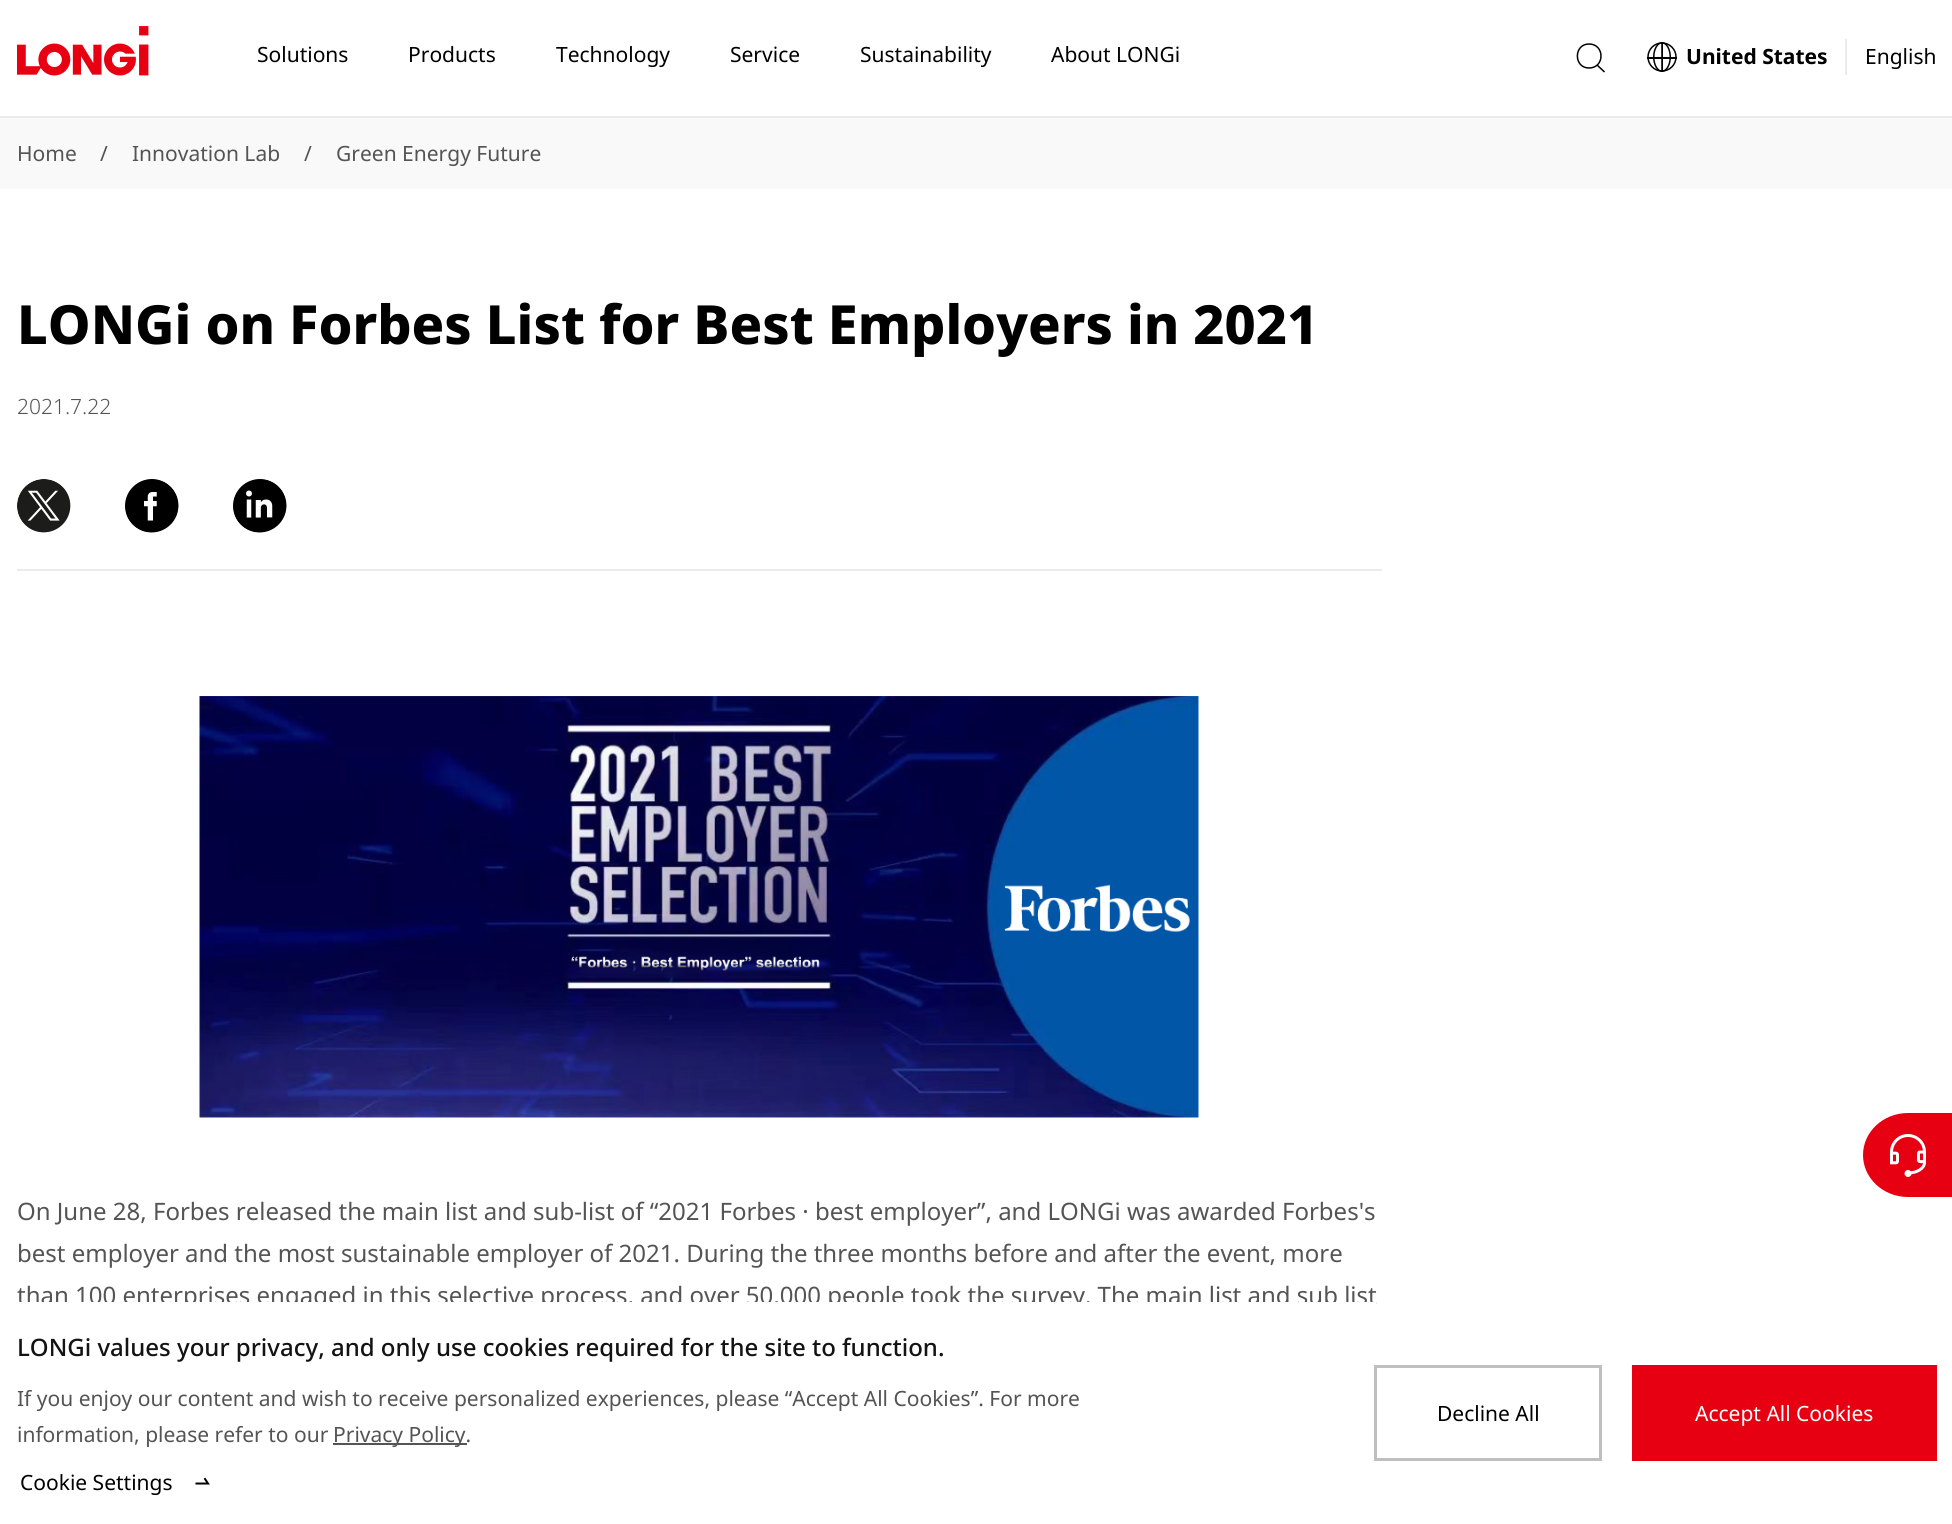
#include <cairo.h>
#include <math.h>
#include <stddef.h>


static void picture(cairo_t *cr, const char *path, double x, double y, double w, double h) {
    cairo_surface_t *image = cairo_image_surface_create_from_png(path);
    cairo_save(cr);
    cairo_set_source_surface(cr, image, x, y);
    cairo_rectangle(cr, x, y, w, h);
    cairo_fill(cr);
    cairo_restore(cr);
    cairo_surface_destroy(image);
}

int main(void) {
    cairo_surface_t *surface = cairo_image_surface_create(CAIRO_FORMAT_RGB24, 1952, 1524);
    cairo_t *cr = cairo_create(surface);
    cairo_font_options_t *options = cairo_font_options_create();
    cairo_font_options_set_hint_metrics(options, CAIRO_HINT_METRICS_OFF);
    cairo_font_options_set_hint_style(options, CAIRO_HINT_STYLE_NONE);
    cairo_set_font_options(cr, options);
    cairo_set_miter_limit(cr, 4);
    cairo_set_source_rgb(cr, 1, 1, 1);
    cairo_paint(cr);
    cairo_set_source_rgb(cr, 0.918, 0.918, 0.918);
    cairo_rectangle(cr, 0, 116, 1952, 2);
    cairo_fill(cr);
    picture(cr, "img1.png", 17, 26, 132, 50);
    cairo_select_font_face(cr, "Noto Sans", CAIRO_FONT_SLANT_NORMAL, CAIRO_FONT_WEIGHT_NORMAL);
    cairo_set_font_size(cr, 21);
    cairo_set_source_rgb(cr, 0, 0, 0);
    cairo_move_to(cr, 257, 62);
    cairo_show_text(cr, "Solutions");
    cairo_move_to(cr, 408, 62);
    cairo_show_text(cr, "Products");
    cairo_move_to(cr, 556, 62);
    cairo_show_text(cr, "Technology");
    cairo_move_to(cr, 730, 62);
    cairo_show_text(cr, "Service");
    cairo_move_to(cr, 860, 62);
    cairo_show_text(cr, "Sustainability");
    cairo_move_to(cr, 1051, 62);
    cairo_show_text(cr, "About LONGi");
    cairo_new_path(cr);
    cairo_move_to(cr, 1589, 44);
    cairo_curve_to(cr, 1573.5, 44, 1573.5, 68, 1589, 68);
    cairo_curve_to(cr, 1605, 68, 1605, 44, 1589, 44);
    cairo_close_path(cr);
    cairo_set_line_width(cr, 1.5);
    cairo_stroke(cr);
    cairo_new_path(cr);
    cairo_move_to(cr, 1597.5, 65);
    cairo_line_to(cr, 1597, 65.5);
    cairo_line_to(cr, 1604, 72);
    cairo_line_to(cr, 1604.5, 71.5);
    cairo_close_path(cr);
    cairo_set_line_width(cr, 0.8);
    cairo_stroke(cr);
    picture(cr, "img2.png", 1646, 42, 32, 30);
    cairo_set_source_rgb(cr, 0.918, 0.918, 0.918);
    cairo_rectangle(cr, 1845, 39, 2, 36);
    cairo_fill(cr);
    cairo_select_font_face(cr, "Noto Sans", CAIRO_FONT_SLANT_NORMAL, CAIRO_FONT_WEIGHT_BOLD);
    cairo_set_source_rgb(cr, 0, 0, 0);
    cairo_move_to(cr, 1686, 64);
    cairo_show_text(cr, "United States");
    cairo_select_font_face(cr, "Noto Sans", CAIRO_FONT_SLANT_NORMAL, CAIRO_FONT_WEIGHT_NORMAL);
    cairo_move_to(cr, 1865, 64);
    cairo_show_text(cr, "English");
    cairo_set_source_rgb(cr, 0.976, 0.976, 0.976);
    cairo_rectangle(cr, 0, 118, 1952, 71);
    cairo_fill(cr);
    cairo_set_source_rgb(cr, 0.329, 0.329, 0.329);
    cairo_move_to(cr, 17, 161);
    cairo_show_text(cr, "Home");
    cairo_move_to(cr, 100, 161);
    cairo_show_text(cr, "/");
    cairo_move_to(cr, 132, 161);
    cairo_show_text(cr, "Innovation Lab");
    cairo_move_to(cr, 304, 161);
    cairo_show_text(cr, "/");
    cairo_move_to(cr, 336, 161);
    cairo_show_text(cr, "Green Energy Future");
    cairo_set_source_rgb(cr, 0.918, 0.918, 0.918);
    cairo_rectangle(cr, 17, 569, 1365, 2);
    cairo_fill(cr);
    cairo_select_font_face(cr, "Noto Sans ExtraBold", CAIRO_FONT_SLANT_NORMAL, CAIRO_FONT_WEIGHT_NORMAL);
    cairo_set_font_size(cr, 54);
    cairo_set_source_rgb(cr, 0, 0, 0);
    cairo_move_to(cr, 17, 344);
    cairo_show_text(cr, "LONGi on Forbes List for Best Employers in 2021");
    cairo_select_font_face(cr, "Noto Sans Light", CAIRO_FONT_SLANT_NORMAL, CAIRO_FONT_WEIGHT_NORMAL);
    cairo_set_font_size(cr, 21);
    cairo_set_source_rgb(cr, 0.329, 0.329, 0.329);
    cairo_move_to(cr, 17, 414);
    cairo_show_text(cr, "2021.7.22");
    picture(cr, "img3.png", 17, 479, 54, 54);
    picture(cr, "img4.png", 125, 479, 54, 54);
    picture(cr, "img5.png", 233, 479, 54, 54);
    picture(cr, "img6.png", 199, 696, 1000, 422);
    cairo_select_font_face(cr, "Noto Sans", CAIRO_FONT_SLANT_NORMAL, CAIRO_FONT_WEIGHT_NORMAL);
    cairo_set_font_size(cr, 24);
    cairo_move_to(cr, 17, 1220);
    cairo_show_text(cr, "On June 28, Forbes released the main list and sub-list of “2021 Forbes · best employer”, and LONGi was awarded Forbes's");
    cairo_move_to(cr, 17, 1262);
    cairo_show_text(cr, "best employer and the most sustainable employer of 2021. During the three months before and after the event, more");
    cairo_move_to(cr, 17, 1304);
    cairo_show_text(cr, "than 100 enterprises engaged in this selective process, and over 50,000 people took the survey. The main list and sub list");
    cairo_set_source_rgb(cr, 0.902, 0, 0.071);
    cairo_new_path(cr);
    cairo_move_to(cr, 1908, 1113);
    cairo_line_to(cr, 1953, 1113);
    cairo_line_to(cr, 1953, 1197);
    cairo_line_to(cr, 1908, 1197);
    cairo_curve_to(cr, 1883, 1197, 1863, 1178, 1863, 1155);
    cairo_curve_to(cr, 1863, 1132, 1883, 1113, 1908, 1113);
    cairo_close_path(cr);
    cairo_fill(cr);
    picture(cr, "img7.png", 1890, 1134, 36, 43);
    cairo_set_source_rgb(cr, 1, 1, 1);
    cairo_rectangle(cr, 19, 1302, 1357, 8);
    cairo_fill(cr);
    cairo_select_font_face(cr, "Noto Sans Medium", CAIRO_FONT_SLANT_NORMAL, CAIRO_FONT_WEIGHT_NORMAL);
    cairo_set_source_rgb(cr, 0.075, 0.075, 0.075);
    cairo_move_to(cr, 17, 1356);
    cairo_show_text(cr, "LONGi values your privacy, and only use cookies required for the site to function.");
    cairo_select_font_face(cr, "Noto Sans", CAIRO_FONT_SLANT_NORMAL, CAIRO_FONT_WEIGHT_NORMAL);
    cairo_set_font_size(cr, 21);
    cairo_set_source_rgb(cr, 0.329, 0.329, 0.329);
    cairo_move_to(cr, 17, 1406);
    cairo_show_text(cr, "If you enjoy our content and wish to receive personalized experiences, please “Accept All Cookies”. For more");
    cairo_move_to(cr, 17, 1442);
    cairo_show_text(cr, "information, please refer to our");
    cairo_rectangle(cr, 333, 1443, 134, 2);
    cairo_fill(cr);
    cairo_move_to(cr, 333, 1442);
    cairo_show_text(cr, "Privacy Policy.");
    cairo_set_source_rgb(cr, 0, 0, 0);
    cairo_move_to(cr, 20, 1490);
    cairo_show_text(cr, "Cookie Settings");
    cairo_new_path(cr);
    cairo_move_to(cr, 196.5, 1483.5);
    cairo_line_to(cr, 208, 1483.5);
    cairo_line_to(cr, 205, 1479);
    cairo_set_line_width(cr, 2);
    cairo_set_line_cap(cr, CAIRO_LINE_CAP_SQUARE);
    cairo_stroke(cr);
    cairo_rectangle(cr, 1375.5, 1366.5, 225, 93);
    cairo_set_source_rgb(cr, 0.749, 0.749, 0.749);
    cairo_set_line_width(cr, 3);
    cairo_set_line_cap(cr, CAIRO_LINE_CAP_BUTT);
    cairo_stroke(cr);
    cairo_set_source_rgb(cr, 0, 0, 0);
    cairo_move_to(cr, 1437, 1421);
    cairo_show_text(cr, "Decline All");
    cairo_set_source_rgb(cr, 0.902, 0, 0.071);
    cairo_rectangle(cr, 1632, 1365, 305, 96);
    cairo_fill(cr);
    cairo_set_source_rgb(cr, 1, 1, 1);
    cairo_move_to(cr, 1695, 1421);
    cairo_show_text(cr, "Accept All Cookies");
    cairo_surface_write_to_png(surface, "page.png");
    cairo_font_options_destroy(options);
    cairo_destroy(cr);
    cairo_surface_destroy(surface);
    return 0;
}
